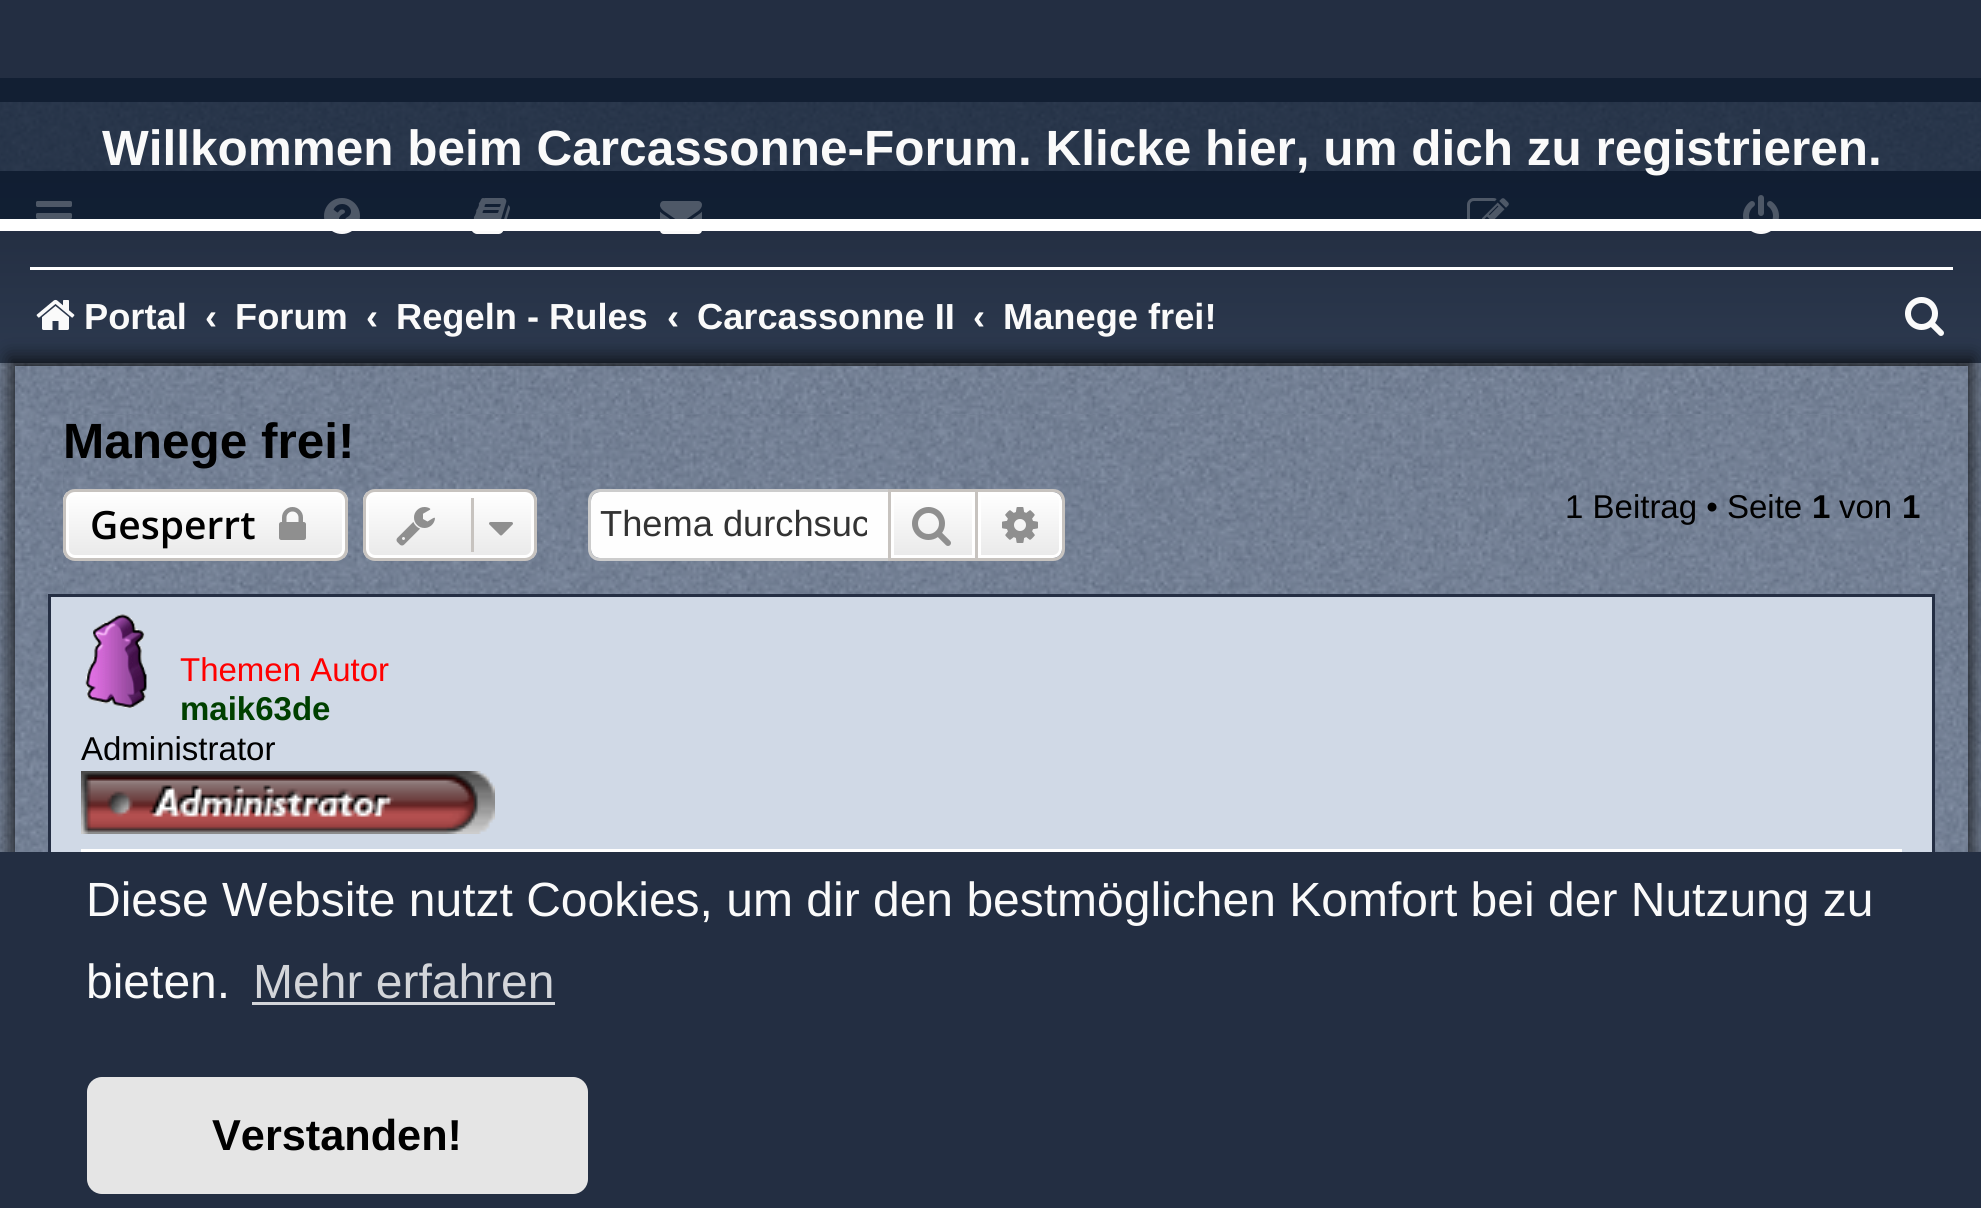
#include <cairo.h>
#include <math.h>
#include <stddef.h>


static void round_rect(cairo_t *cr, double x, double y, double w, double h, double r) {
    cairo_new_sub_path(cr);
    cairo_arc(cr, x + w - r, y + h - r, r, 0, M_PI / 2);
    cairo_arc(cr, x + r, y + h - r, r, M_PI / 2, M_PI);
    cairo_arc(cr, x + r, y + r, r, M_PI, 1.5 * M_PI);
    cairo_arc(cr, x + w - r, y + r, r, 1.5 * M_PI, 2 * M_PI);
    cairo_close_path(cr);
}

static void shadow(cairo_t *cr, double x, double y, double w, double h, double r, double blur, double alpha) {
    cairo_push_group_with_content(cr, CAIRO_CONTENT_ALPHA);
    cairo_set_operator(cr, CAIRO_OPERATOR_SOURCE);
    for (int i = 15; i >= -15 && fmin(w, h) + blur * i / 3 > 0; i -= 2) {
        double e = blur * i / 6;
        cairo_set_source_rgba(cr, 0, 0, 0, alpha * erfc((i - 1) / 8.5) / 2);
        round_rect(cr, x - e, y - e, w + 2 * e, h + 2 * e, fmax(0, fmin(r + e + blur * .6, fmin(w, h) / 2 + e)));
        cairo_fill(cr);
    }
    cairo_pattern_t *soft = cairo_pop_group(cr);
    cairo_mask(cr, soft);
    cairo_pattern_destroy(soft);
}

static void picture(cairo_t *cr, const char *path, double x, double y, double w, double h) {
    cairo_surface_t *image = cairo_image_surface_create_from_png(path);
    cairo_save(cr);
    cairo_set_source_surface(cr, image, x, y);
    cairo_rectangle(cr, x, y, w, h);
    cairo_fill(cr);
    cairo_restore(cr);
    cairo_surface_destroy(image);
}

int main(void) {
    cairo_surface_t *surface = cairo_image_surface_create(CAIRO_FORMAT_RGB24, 1981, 1208);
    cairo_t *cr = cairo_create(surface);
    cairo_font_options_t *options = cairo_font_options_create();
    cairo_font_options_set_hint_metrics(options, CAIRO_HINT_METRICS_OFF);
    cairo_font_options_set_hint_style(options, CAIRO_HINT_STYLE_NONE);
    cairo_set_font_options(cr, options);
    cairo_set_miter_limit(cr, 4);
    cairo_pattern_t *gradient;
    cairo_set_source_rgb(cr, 0.137, 0.18, 0.259);
    cairo_paint(cr);
    picture(cr, "img2.png", 0, 102, 1981, 69);
    picture(cr, "img3.png", 0, 171, 1981, 192);
    picture(cr, "img4.png", 36, 201, 36, 18);
    picture(cr, "img5.png", 324, 198, 36, 36);
    picture(cr, "img6.png", 472, 198, 38, 36);
    picture(cr, "img7.png", 660, 201, 42, 33);
    picture(cr, "img8.png", 1467, 198, 42, 21);
    picture(cr, "img9.png", 1743, 195, 36, 39);
    cairo_set_source_rgba(cr, 0.047, 0.102, 0.184, 0.72);
    cairo_rectangle(cr, 0, 78, 1981, 141);
    cairo_fill(cr);
    cairo_set_source_rgb(cr, 1, 1, 1);
    cairo_rectangle(cr, 0, 219, 1981, 12);
    cairo_fill(cr);
    cairo_select_font_face(cr, "Liberation Sans", CAIRO_FONT_SLANT_NORMAL, CAIRO_FONT_WEIGHT_BOLD);
    cairo_set_font_size(cr, 49.5);
    cairo_set_source_rgb(cr, 0.98, 0.98, 0.98);
    cairo_move_to(cr, 102, 165);
    cairo_show_text(cr, "Willkommen beim Carcassonne-Forum. Klicke hier, um dich zu registrieren.");
    picture(cr, "img1.png", 0, 363, 1981, 489);
    cairo_set_source_rgb(cr, 1, 1, 1);
    cairo_rectangle(cr, 30, 267, 1923, 3);
    cairo_fill(cr);
    cairo_save(cr);
    cairo_set_fill_rule(cr, CAIRO_FILL_RULE_EVEN_ODD);
    cairo_new_path(cr);
    cairo_move_to(cr, 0, 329);
    cairo_line_to(cr, 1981, 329);
    cairo_line_to(cr, 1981, 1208);
    cairo_line_to(cr, 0, 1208);
    cairo_close_path(cr);
    cairo_move_to(cr, 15, 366);
    cairo_line_to(cr, 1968, 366);
    cairo_line_to(cr, 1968, 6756);
    cairo_line_to(cr, 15, 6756);
    cairo_close_path(cr);
    cairo_clip(cr);
    cairo_set_source_rgb(cr, 0.008, 0.008, 0.008);
    shadow(cr, 9, 357, 1965, 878, 0, 9, 0.7);
    cairo_restore(cr);
    picture(cr, "img10.png", 36, 299, 39, 31);
    cairo_set_font_size(cr, 36.25);
    cairo_set_source_rgb(cr, 0.98, 0.98, 0.98);
    cairo_move_to(cr, 84, 329);
    cairo_show_text(cr, "Portal");
    cairo_move_to(cr, 205, 329);
    cairo_show_text(cr, "‹");
    cairo_move_to(cr, 235, 329);
    cairo_show_text(cr, "Forum");
    cairo_move_to(cr, 366, 329);
    cairo_show_text(cr, "‹");
    cairo_move_to(cr, 396, 329);
    cairo_show_text(cr, "Regeln - Rules");
    cairo_move_to(cr, 667, 329);
    cairo_show_text(cr, "‹");
    cairo_move_to(cr, 697, 329);
    cairo_show_text(cr, "Carcassonne II");
    cairo_move_to(cr, 973, 329);
    cairo_show_text(cr, "‹");
    cairo_move_to(cr, 1003, 329);
    cairo_show_text(cr, "Manege frei!");
    picture(cr, "img11.png", 1905, 297, 39, 39);
    picture(cr, "img12.png", 63, 414, 1857, 180);
    cairo_set_font_size(cr, 49.5);
    cairo_set_source_rgb(cr, 0, 0, 0);
    cairo_move_to(cr, 63, 458);
    cairo_show_text(cr, "Manege frei!");
    cairo_save(cr);
    round_rect(cr, 63, 489, 285, 72, 12);
    cairo_clip(cr);
    gradient = cairo_pattern_create_linear(206, 492, 206, 558);
    cairo_pattern_add_color_stop_rgba(gradient, 0, 1, 1, 1, 1);
    cairo_pattern_add_color_stop_rgba(gradient, 1, 0.914, 0.914, 0.914, 1);
    cairo_set_source(cr, gradient);
    cairo_pattern_destroy(gradient);
    cairo_rectangle(cr, 63, 492, 285, 66);
    cairo_fill(cr);
    cairo_restore(cr);
    round_rect(cr, 67.5, 493.5, 276, 63, 7.5);
    cairo_set_source_rgb(cr, 1, 1, 1);
    cairo_set_line_width(cr, 3);
    cairo_stroke(cr);
    round_rect(cr, 64.5, 490.5, 282, 69, 10.5);
    cairo_set_source_rgb(cr, 0.78, 0.765, 0.749);
    cairo_stroke(cr);
    cairo_select_font_face(cr, "Open Sans SemiBold", CAIRO_FONT_SLANT_NORMAL, CAIRO_FONT_WEIGHT_NORMAL);
    cairo_set_font_size(cr, 39);
    cairo_set_source_rgb(cr, 0, 0, 0);
    cairo_move_to(cr, 90, 539);
    cairo_show_text(cr, "Gesperrt");
    picture(cr, "img13.png", 279, 507, 27, 33);
    cairo_save(cr);
    round_rect(cr, 363, 489, 174, 72, 12);
    cairo_clip(cr);
    gradient = cairo_pattern_create_linear(450, 492, 450, 558);
    cairo_pattern_add_color_stop_rgba(gradient, 0, 1, 1, 1, 1);
    cairo_pattern_add_color_stop_rgba(gradient, 1, 0.914, 0.914, 0.914, 1);
    cairo_set_source(cr, gradient);
    cairo_pattern_destroy(gradient);
    cairo_rectangle(cr, 363, 492, 174, 66);
    cairo_fill(cr);
    cairo_restore(cr);
    round_rect(cr, 367.5, 493.5, 165, 63, 7.5);
    cairo_set_source_rgb(cr, 1, 1, 1);
    cairo_stroke(cr);
    round_rect(cr, 364.5, 490.5, 171, 69, 10.5);
    cairo_set_source_rgb(cr, 0.78, 0.765, 0.749);
    cairo_stroke(cr);
    picture(cr, "img14.png", 396, 507, 39, 39);
    cairo_rectangle(cr, 471, 498, 3, 54);
    cairo_fill(cr);
    picture(cr, "img15.png", 489, 522, 24, 14);
    cairo_set_source_rgb(cr, 0.996, 0.996, 0.996);
    cairo_new_path(cr);
    cairo_move_to(cr, 600, 492);
    cairo_line_to(cr, 888, 492);
    cairo_line_to(cr, 888, 558);
    cairo_line_to(cr, 600, 558);
    cairo_curve_to(cr, 595, 558, 591, 554, 591, 549);
    cairo_line_to(cr, 591, 501);
    cairo_curve_to(cr, 591, 496, 595, 492, 600, 492);
    cairo_close_path(cr);
    cairo_fill(cr);
    cairo_set_source_rgb(cr, 0.8, 0.8, 0.8);
    cairo_set_fill_rule(cr, CAIRO_FILL_RULE_EVEN_ODD);
    cairo_new_path(cr);
    cairo_move_to(cr, 600, 489);
    cairo_line_to(cr, 888, 489);
    cairo_line_to(cr, 888, 561);
    cairo_line_to(cr, 600, 561);
    cairo_curve_to(cr, 593, 561, 588, 556, 588, 549);
    cairo_line_to(cr, 588, 501);
    cairo_curve_to(cr, 588, 494, 593, 489, 600, 489);
    cairo_close_path(cr);
    cairo_move_to(cr, 600, 492);
    cairo_line_to(cr, 888, 492);
    cairo_line_to(cr, 888, 558);
    cairo_line_to(cr, 600, 558);
    cairo_curve_to(cr, 595, 558, 591, 554, 591, 549);
    cairo_line_to(cr, 591, 501);
    cairo_curve_to(cr, 591, 496, 595, 492, 600, 492);
    cairo_close_path(cr);
    cairo_fill(cr);
    cairo_save(cr);
    cairo_set_fill_rule(cr, CAIRO_FILL_RULE_WINDING);
    cairo_rectangle(cr, 600, 504, 267, 42);
    cairo_clip(cr);
    cairo_select_font_face(cr, "Liberation Sans", CAIRO_FONT_SLANT_NORMAL, CAIRO_FONT_WEIGHT_NORMAL);
    cairo_set_font_size(cr, 36.25);
    cairo_set_source_rgb(cr, 0.2, 0.2, 0.2);
    cairo_move_to(cr, 600, 536);
    cairo_show_text(cr, "Thema durchsuc");
    cairo_restore(cr);
    gradient = cairo_pattern_create_linear(933, 492, 933, 558);
    cairo_pattern_add_color_stop_rgba(gradient, 0, 1, 1, 1, 1);
    cairo_pattern_add_color_stop_rgba(gradient, 1, 0.914, 0.914, 0.914, 1);
    cairo_set_source(cr, gradient);
    cairo_pattern_destroy(gradient);
    cairo_rectangle(cr, 894, 495, 78, 60);
    cairo_fill(cr);
    cairo_rectangle(cr, 892.5, 493.5, 81, 63);
    cairo_set_source_rgb(cr, 1, 1, 1);
    cairo_stroke(cr);
    cairo_rectangle(cr, 889.5, 490.5, 87, 69);
    cairo_set_source_rgb(cr, 0.78, 0.765, 0.749);
    cairo_stroke(cr);
    picture(cr, "img16.png", 912, 507, 39, 39);
    gradient = cairo_pattern_create_linear(1020, 492, 1020, 558);
    cairo_pattern_add_color_stop_rgba(gradient, 0, 1, 1, 1, 1);
    cairo_pattern_add_color_stop_rgba(gradient, 1, 0.914, 0.914, 0.914, 1);
    cairo_set_source(cr, gradient);
    cairo_pattern_destroy(gradient);
    cairo_new_path(cr);
    cairo_move_to(cr, 979.5, 493.5);
    cairo_line_to(cr, 1053, 493.5);
    cairo_curve_to(cr, 1057, 493.5, 1060.5, 497, 1060.5, 501);
    cairo_line_to(cr, 1060.5, 549);
    cairo_curve_to(cr, 1060.5, 553, 1057, 556.5, 1053, 556.5);
    cairo_line_to(cr, 979.5, 556.5);
    cairo_close_path(cr);
    cairo_fill_preserve(cr);
    cairo_set_source_rgb(cr, 1, 1, 1);
    cairo_stroke(cr);
    cairo_set_source_rgb(cr, 0.78, 0.765, 0.749);
    cairo_new_path(cr);
    cairo_move_to(cr, 978, 489);
    cairo_line_to(cr, 1053, 489);
    cairo_curve_to(cr, 1060, 489, 1065, 494, 1065, 501);
    cairo_line_to(cr, 1065, 549);
    cairo_curve_to(cr, 1065, 556, 1060, 561, 1053, 561);
    cairo_line_to(cr, 978, 561);
    cairo_close_path(cr);
    cairo_move_to(cr, 978, 492);
    cairo_line_to(cr, 1053, 492);
    cairo_curve_to(cr, 1058, 492, 1062, 496, 1062, 501);
    cairo_line_to(cr, 1062, 549);
    cairo_curve_to(cr, 1062, 554, 1058, 558, 1053, 558);
    cairo_line_to(cr, 978, 558);
    cairo_close_path(cr);
    cairo_fill(cr);
    picture(cr, "img17.png", 1002, 507, 36, 36);
    cairo_select_font_face(cr, "Liberation Sans", CAIRO_FONT_SLANT_NORMAL, CAIRO_FONT_WEIGHT_NORMAL);
    cairo_set_font_size(cr, 33);
    cairo_set_source_rgb(cr, 0, 0, 0);
    cairo_move_to(cr, 1565, 518);
    cairo_show_text(cr, "1 Beitrag • Seite");
    cairo_select_font_face(cr, "Liberation Sans", CAIRO_FONT_SLANT_NORMAL, CAIRO_FONT_WEIGHT_BOLD);
    cairo_move_to(cr, 1812, 518);
    cairo_show_text(cr, "1");
    cairo_select_font_face(cr, "Liberation Sans", CAIRO_FONT_SLANT_NORMAL, CAIRO_FONT_WEIGHT_NORMAL);
    cairo_move_to(cr, 1839, 518);
    cairo_show_text(cr, "von");
    cairo_select_font_face(cr, "Liberation Sans", CAIRO_FONT_SLANT_NORMAL, CAIRO_FONT_WEIGHT_BOLD);
    cairo_move_to(cr, 1902, 518);
    cairo_show_text(cr, "1");
    cairo_set_source_rgb(cr, 0.816, 0.851, 0.902);
    cairo_rectangle(cr, 51, 597, 1881, 255);
    cairo_fill(cr);
    cairo_rectangle(cr, 49.5, 595.5, 1884, 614);
    cairo_set_source_rgb(cr, 0.141, 0.18, 0.263);
    cairo_stroke(cr);
    cairo_set_source_rgb(cr, 1, 1, 1);
    cairo_rectangle(cr, 81, 849, 1821, 3);
    cairo_fill(cr);
    picture(cr, "img18.png", 85, 614, 62, 94);
    cairo_select_font_face(cr, "Liberation Sans", CAIRO_FONT_SLANT_NORMAL, CAIRO_FONT_WEIGHT_NORMAL);
    cairo_set_source_rgb(cr, 1, 0, 0);
    cairo_move_to(cr, 180, 681);
    cairo_show_text(cr, "Themen Autor");
    cairo_select_font_face(cr, "Liberation Sans", CAIRO_FONT_SLANT_NORMAL, CAIRO_FONT_WEIGHT_BOLD);
    cairo_set_source_rgb(cr, 0, 0.251, 0);
    cairo_move_to(cr, 180, 720);
    cairo_show_text(cr, "maik63de");
    cairo_select_font_face(cr, "Liberation Sans", CAIRO_FONT_SLANT_NORMAL, CAIRO_FONT_WEIGHT_NORMAL);
    cairo_set_source_rgb(cr, 0, 0, 0);
    cairo_move_to(cr, 81, 760);
    cairo_show_text(cr, "Administrator");
    picture(cr, "img19.png", 81, 771, 414, 63);
    cairo_set_source_rgb(cr, 0.137, 0.18, 0.259);
    cairo_rectangle(cr, 0, 852, 1981, 356);
    cairo_fill(cr);
    cairo_set_font_size(cr, 48);
    cairo_set_source_rgb(cr, 0.98, 0.98, 0.98);
    cairo_move_to(cr, 86, 916);
    cairo_show_text(cr, "Diese Website nutzt Cookies, um dir den bestmöglichen Komfort bei der Nutzung zu");
    cairo_move_to(cr, 86, 998);
    cairo_show_text(cr, "bieten.");
    cairo_set_source_rgb(cr, 0.827, 0.835, 0.851);
    cairo_move_to(cr, 253, 998);
    cairo_show_text(cr, "Mehr erfahren");
    cairo_rectangle(cr, 252, 1002, 303, 3);
    cairo_fill(cr);
    cairo_set_source_rgb(cr, 0.898, 0.898, 0.898);
    round_rect(cr, 87, 1077, 501, 117, 15);
    cairo_fill(cr);
    cairo_select_font_face(cr, "Liberation Sans", CAIRO_FONT_SLANT_NORMAL, CAIRO_FONT_WEIGHT_BOLD);
    cairo_set_font_size(cr, 43.25);
    cairo_set_source_rgb(cr, 0, 0, 0);
    cairo_move_to(cr, 212, 1150);
    cairo_show_text(cr, "Verstanden!");
    cairo_surface_write_to_png(surface, "page.png");
    cairo_font_options_destroy(options);
    cairo_destroy(cr);
    cairo_surface_destroy(surface);
    return 0;
}
